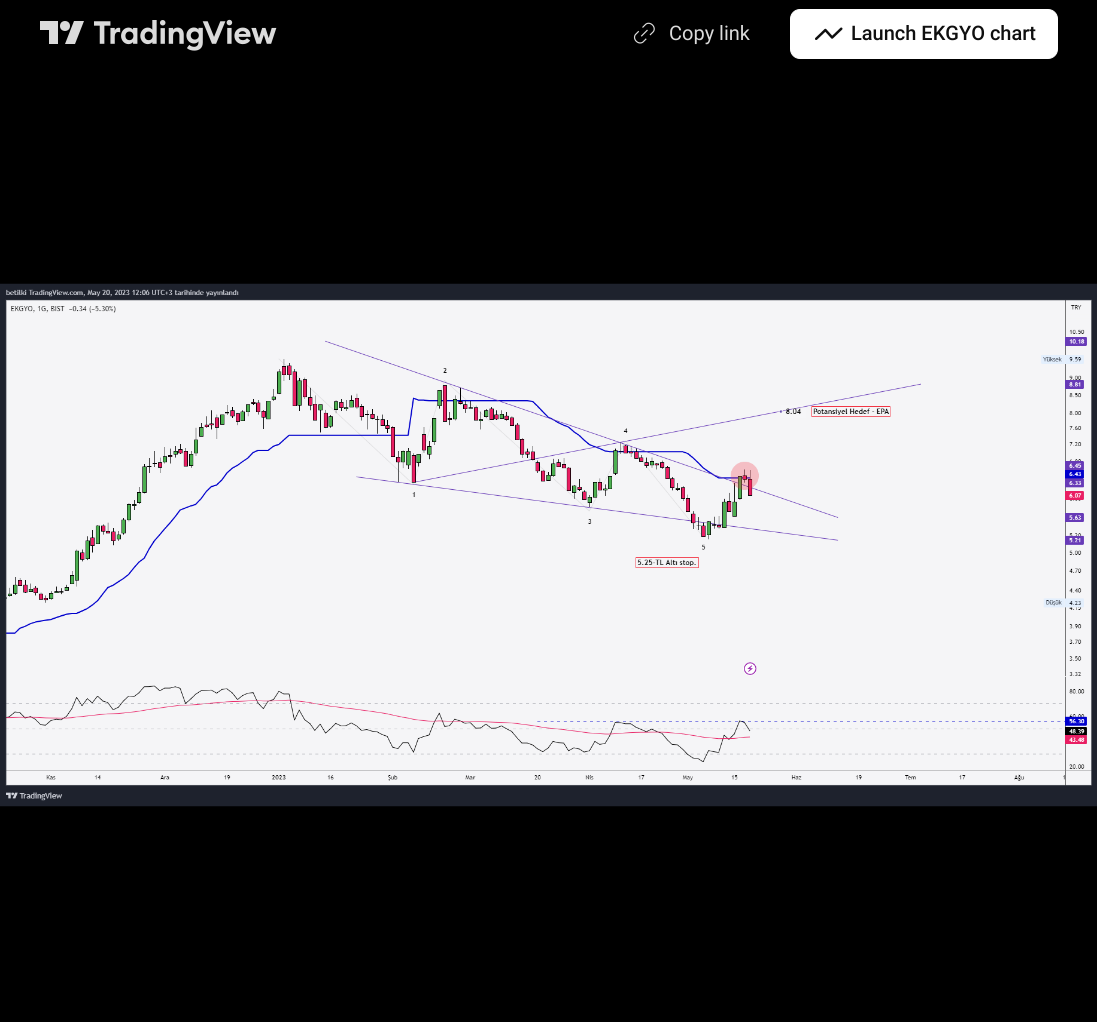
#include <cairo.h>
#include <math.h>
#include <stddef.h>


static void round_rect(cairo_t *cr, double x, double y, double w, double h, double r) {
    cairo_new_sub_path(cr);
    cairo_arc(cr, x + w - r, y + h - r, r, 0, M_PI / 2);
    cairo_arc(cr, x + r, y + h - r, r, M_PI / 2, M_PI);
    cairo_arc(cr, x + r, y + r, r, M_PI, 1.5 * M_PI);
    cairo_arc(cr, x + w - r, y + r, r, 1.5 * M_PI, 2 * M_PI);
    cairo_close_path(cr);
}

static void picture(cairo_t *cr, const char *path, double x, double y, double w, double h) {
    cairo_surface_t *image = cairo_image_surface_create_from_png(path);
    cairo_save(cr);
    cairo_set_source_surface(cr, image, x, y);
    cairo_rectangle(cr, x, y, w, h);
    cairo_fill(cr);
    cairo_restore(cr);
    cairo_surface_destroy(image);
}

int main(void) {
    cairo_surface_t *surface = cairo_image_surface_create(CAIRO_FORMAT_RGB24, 1097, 1022);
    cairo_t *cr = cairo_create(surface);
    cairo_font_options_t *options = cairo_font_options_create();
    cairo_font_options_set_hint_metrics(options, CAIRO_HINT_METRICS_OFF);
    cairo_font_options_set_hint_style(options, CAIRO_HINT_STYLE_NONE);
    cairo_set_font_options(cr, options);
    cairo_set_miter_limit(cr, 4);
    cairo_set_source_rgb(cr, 0, 0, 0);
    cairo_paint(cr);
    cairo_set_source_rgb(cr, 0.859, 0.859, 0.859);
    cairo_new_path(cr);
    cairo_move_to(cr, 58, 44);
    cairo_line_to(cr, 49, 44);
    cairo_line_to(cr, 49, 30);
    cairo_line_to(cr, 40, 30);
    cairo_line_to(cr, 40, 21);
    cairo_line_to(cr, 58, 21);
    cairo_close_path(cr);
    cairo_move_to(cr, 75, 44);
    cairo_line_to(cr, 65, 44);
    cairo_line_to(cr, 74, 21);
    cairo_line_to(cr, 84, 21);
    cairo_close_path(cr);
    cairo_fill(cr);
    cairo_arc(cr, 65, 26, 5, 0, 2 * M_PI);
    cairo_fill(cr);
    picture(cr, "img1.png", 94, 19, 183, 32);
    picture(cr, "img2.png", 633, 22, 22, 22);
    cairo_select_font_face(cr, "Roboto", CAIRO_FONT_SLANT_NORMAL, CAIRO_FONT_WEIGHT_NORMAL);
    cairo_set_font_size(cr, 20);
    cairo_move_to(cr, 669, 40);
    cairo_show_text(cr, "Copy link");
    cairo_set_source_rgb(cr, 1, 1, 1);
    round_rect(cr, 790.5, 9.5, 267, 49, 9.5);
    cairo_fill_preserve(cr);
    cairo_set_line_width(cr, 1);
    cairo_stroke(cr);
    picture(cr, "img3.png", 815, 27, 28, 13);
    cairo_select_font_face(cr, "Roboto Medium", CAIRO_FONT_SLANT_NORMAL, CAIRO_FONT_WEIGHT_NORMAL);
    cairo_set_source_rgb(cr, 0.059, 0.059, 0.059);
    cairo_move_to(cr, 851, 40);
    cairo_show_text(cr, "Launch EKGYO chart");
    picture(cr, "img4.png", 0, 283, 1097, 524);
    cairo_surface_write_to_png(surface, "page.png");
    cairo_font_options_destroy(options);
    cairo_destroy(cr);
    cairo_surface_destroy(surface);
    return 0;
}
